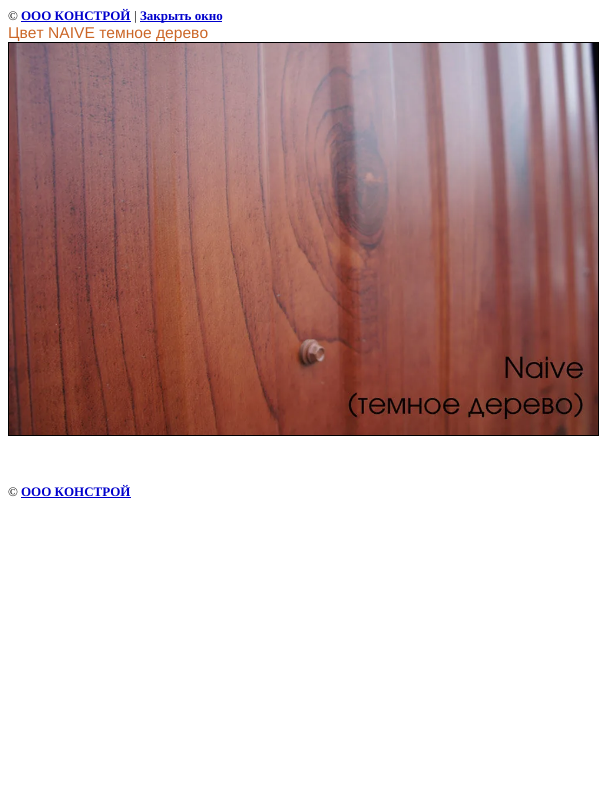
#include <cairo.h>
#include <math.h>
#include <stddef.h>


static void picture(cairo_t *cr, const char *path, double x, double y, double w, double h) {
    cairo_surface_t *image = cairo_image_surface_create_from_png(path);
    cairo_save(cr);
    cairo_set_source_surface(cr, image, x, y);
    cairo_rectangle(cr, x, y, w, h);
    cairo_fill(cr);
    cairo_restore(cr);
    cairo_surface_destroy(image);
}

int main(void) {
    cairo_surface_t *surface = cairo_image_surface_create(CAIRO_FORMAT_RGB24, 605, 792);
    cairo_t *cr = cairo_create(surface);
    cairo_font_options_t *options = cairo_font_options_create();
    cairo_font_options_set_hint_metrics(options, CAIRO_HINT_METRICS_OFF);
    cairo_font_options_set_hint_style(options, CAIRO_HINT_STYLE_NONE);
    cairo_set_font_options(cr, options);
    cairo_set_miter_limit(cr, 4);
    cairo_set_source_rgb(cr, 1, 1, 1);
    cairo_paint(cr);
    cairo_select_font_face(cr, "Liberation Serif", CAIRO_FONT_SLANT_NORMAL, CAIRO_FONT_WEIGHT_NORMAL);
    cairo_set_font_size(cr, 13);
    cairo_set_source_rgb(cr, 0, 0, 0);
    cairo_move_to(cr, 8, 20);
    cairo_show_text(cr, "©");
    cairo_select_font_face(cr, "Liberation Serif", CAIRO_FONT_SLANT_NORMAL, CAIRO_FONT_WEIGHT_BOLD);
    cairo_set_source_rgb(cr, 0, 0, 0.8);
    cairo_move_to(cr, 21, 20);
    cairo_show_text(cr, "ООО КОНСТРОЙ");
    cairo_rectangle(cr, 21, 21, 110, 1);
    cairo_fill(cr);
    cairo_select_font_face(cr, "Liberation Serif", CAIRO_FONT_SLANT_NORMAL, CAIRO_FONT_WEIGHT_NORMAL);
    cairo_set_source_rgb(cr, 0, 0, 0);
    cairo_move_to(cr, 134, 20);
    cairo_show_text(cr, "|");
    cairo_set_source_rgb(cr, 0, 0, 0.8);
    cairo_rectangle(cr, 140, 21, 82, 1);
    cairo_fill(cr);
    cairo_select_font_face(cr, "Liberation Serif", CAIRO_FONT_SLANT_NORMAL, CAIRO_FONT_WEIGHT_BOLD);
    cairo_move_to(cr, 140, 20);
    cairo_show_text(cr, "Закрыть окно");
    cairo_select_font_face(cr, "Liberation Sans", CAIRO_FONT_SLANT_NORMAL, CAIRO_FONT_WEIGHT_NORMAL);
    cairo_set_font_size(cr, 15.6);
    cairo_set_source_rgb(cr, 0.796, 0.4, 0.153);
    cairo_move_to(cr, 8, 38);
    cairo_show_text(cr, "Цвет NAIVE темное дерево");
    cairo_rectangle(cr, 8.5, 42.5, 590, 393);
    cairo_set_source_rgb(cr, 0, 0, 0);
    cairo_set_line_width(cr, 1);
    cairo_stroke(cr);
    picture(cr, "img1.png", 9, 43, 589, 392);
    cairo_select_font_face(cr, "Liberation Serif", CAIRO_FONT_SLANT_NORMAL, CAIRO_FONT_WEIGHT_NORMAL);
    cairo_set_font_size(cr, 13);
    cairo_move_to(cr, 8, 496);
    cairo_show_text(cr, "©");
    cairo_select_font_face(cr, "Liberation Serif", CAIRO_FONT_SLANT_NORMAL, CAIRO_FONT_WEIGHT_BOLD);
    cairo_set_source_rgb(cr, 0, 0, 0.8);
    cairo_move_to(cr, 21, 496);
    cairo_show_text(cr, "ООО КОНСТРОЙ");
    cairo_rectangle(cr, 21, 497, 110, 1);
    cairo_fill(cr);
    cairo_surface_write_to_png(surface, "page.png");
    cairo_font_options_destroy(options);
    cairo_destroy(cr);
    cairo_surface_destroy(surface);
    return 0;
}
